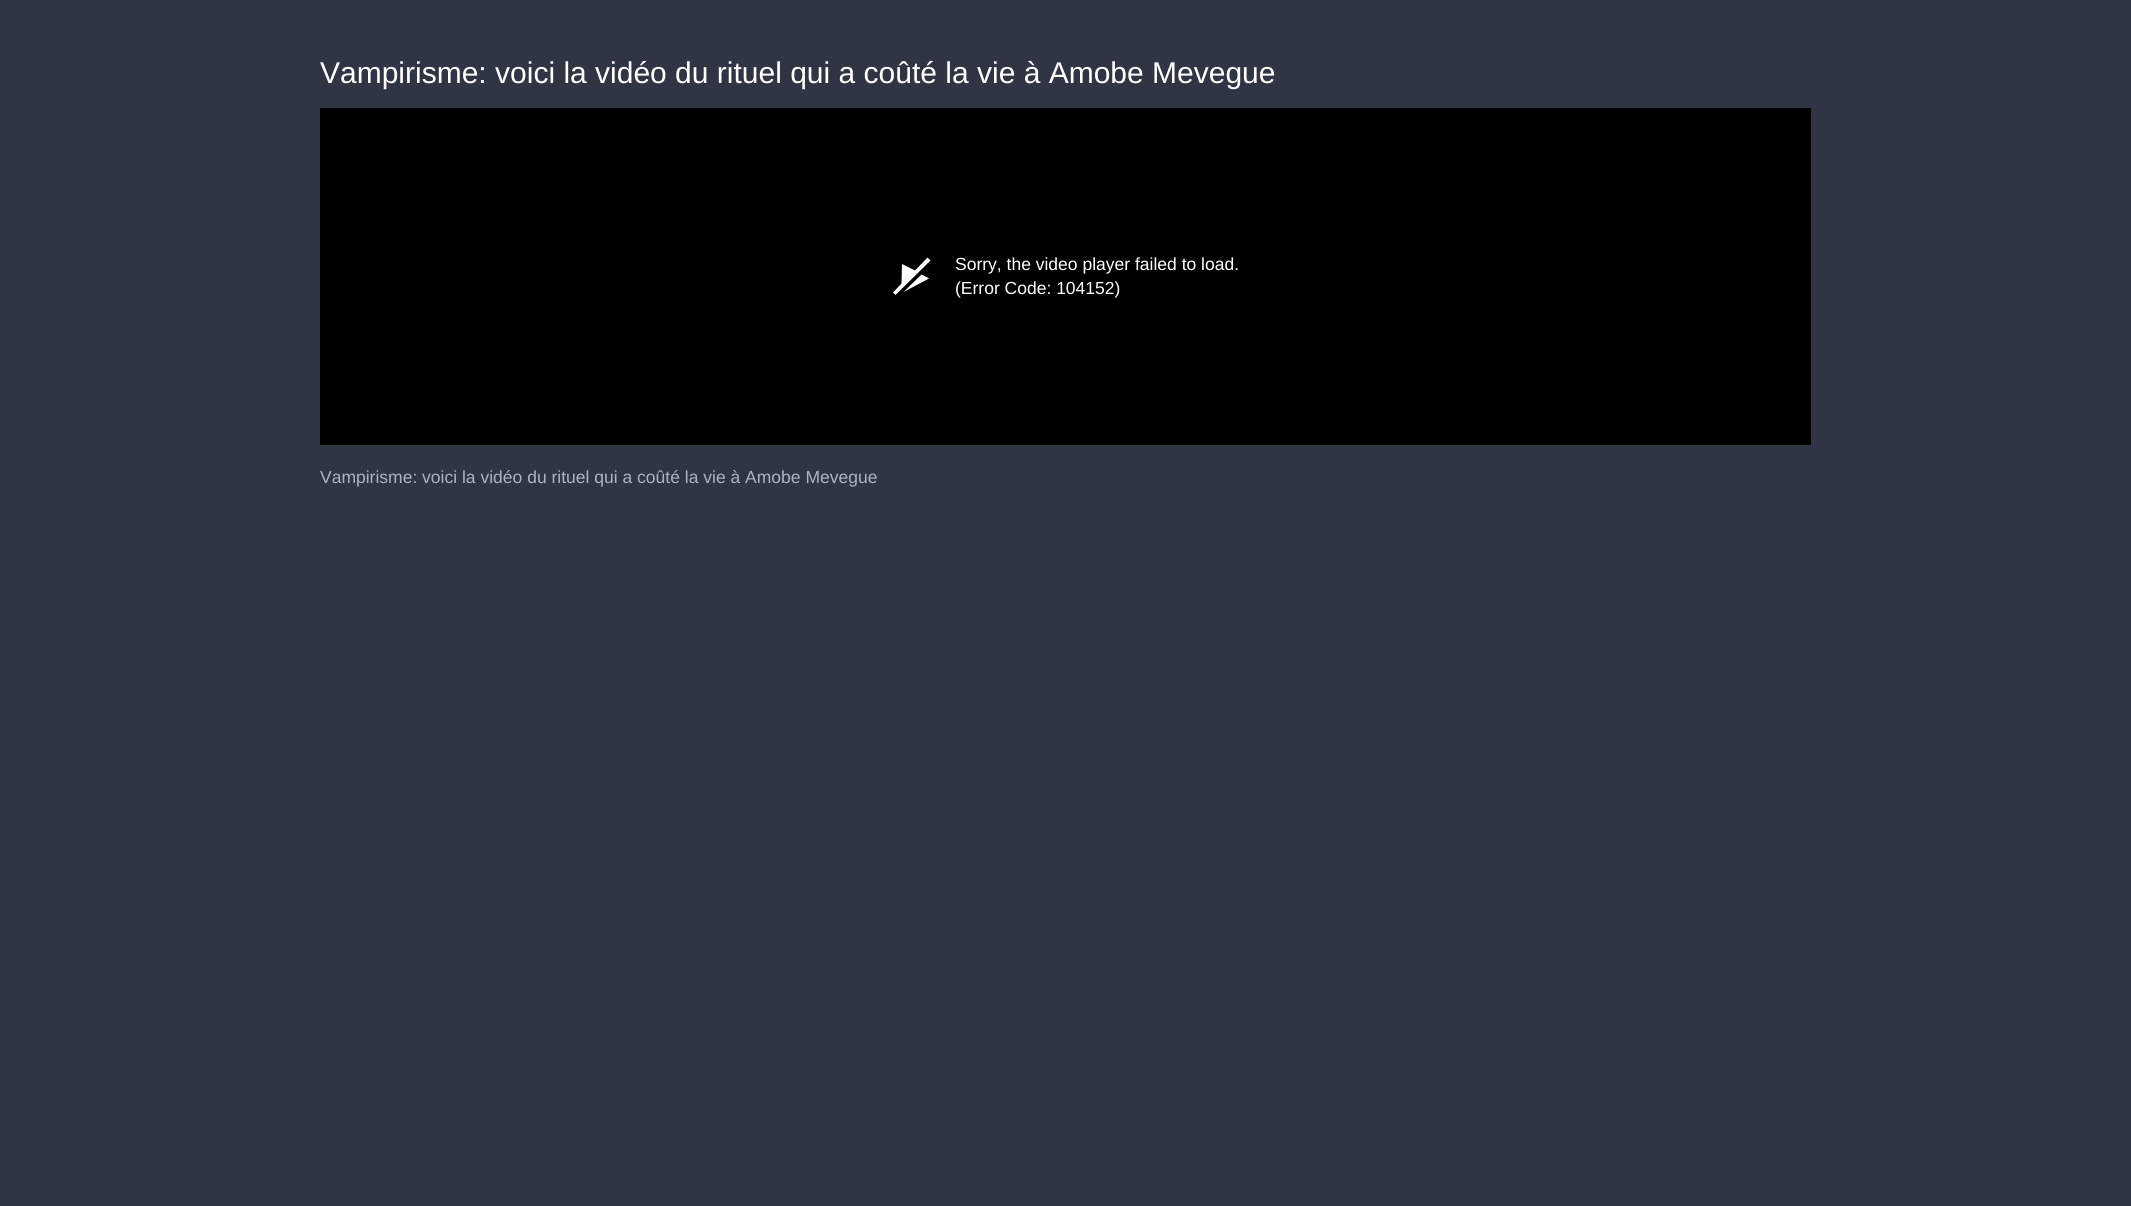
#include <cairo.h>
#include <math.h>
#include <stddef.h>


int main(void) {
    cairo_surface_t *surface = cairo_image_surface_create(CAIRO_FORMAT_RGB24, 2131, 1206);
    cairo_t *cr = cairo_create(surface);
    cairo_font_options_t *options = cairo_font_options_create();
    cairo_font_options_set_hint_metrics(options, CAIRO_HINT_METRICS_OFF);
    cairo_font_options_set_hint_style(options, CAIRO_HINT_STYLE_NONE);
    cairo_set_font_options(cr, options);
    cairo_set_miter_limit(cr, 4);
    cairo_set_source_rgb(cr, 0.184, 0.208, 0.259);
    cairo_paint(cr);
    cairo_select_font_face(cr, "Liberation Sans", CAIRO_FONT_SLANT_NORMAL, CAIRO_FONT_WEIGHT_NORMAL);
    cairo_set_font_size(cr, 30);
    cairo_set_source_rgb(cr, 1, 1, 1);
    cairo_move_to(cr, 320, 83);
    cairo_show_text(cr, "Vampirisme: voici la vidéo du rituel qui a coûté la vie à Amobe Mevegue");
    cairo_set_source_rgb(cr, 0, 0, 0);
    cairo_rectangle(cr, 320, 108, 1491, 337);
    cairo_fill(cr);
    cairo_set_source_rgb(cr, 1, 1, 1);
    cairo_new_path(cr);
    cairo_move_to(cr, 929, 278.5);
    cairo_line_to(cr, 903.5, 292);
    cairo_line_to(cr, 921.5, 274.5);
    cairo_curve_to(cr, 928.5, 278, 930, 278.5, 929, 279);
    cairo_close_path(cr);
    cairo_move_to(cr, 927.5, 257.5);
    cairo_line_to(cr, 915, 270.5);
    cairo_line_to(cr, 902, 264);
    cairo_line_to(cr, 901.5, 283.5);
    cairo_line_to(cr, 893, 292.5);
    cairo_line_to(cr, 895.5, 295);
    cairo_line_to(cr, 930.5, 260.5);
    cairo_close_path(cr);
    cairo_fill(cr);
    cairo_set_font_size(cr, 17.5);
    cairo_move_to(cr, 955, 270);
    cairo_show_text(cr, "Sorry, the video player failed to load.");
    cairo_move_to(cr, 955, 294);
    cairo_show_text(cr, "(Error Code: 104152)");
    cairo_set_source_rgb(cr, 0.667, 0.706, 0.784);
    cairo_move_to(cr, 320, 483);
    cairo_show_text(cr, "Vampirisme: voici la vidéo du rituel qui a coûté la vie à Amobe Mevegue");
    cairo_surface_write_to_png(surface, "page.png");
    cairo_font_options_destroy(options);
    cairo_destroy(cr);
    cairo_surface_destroy(surface);
    return 0;
}
